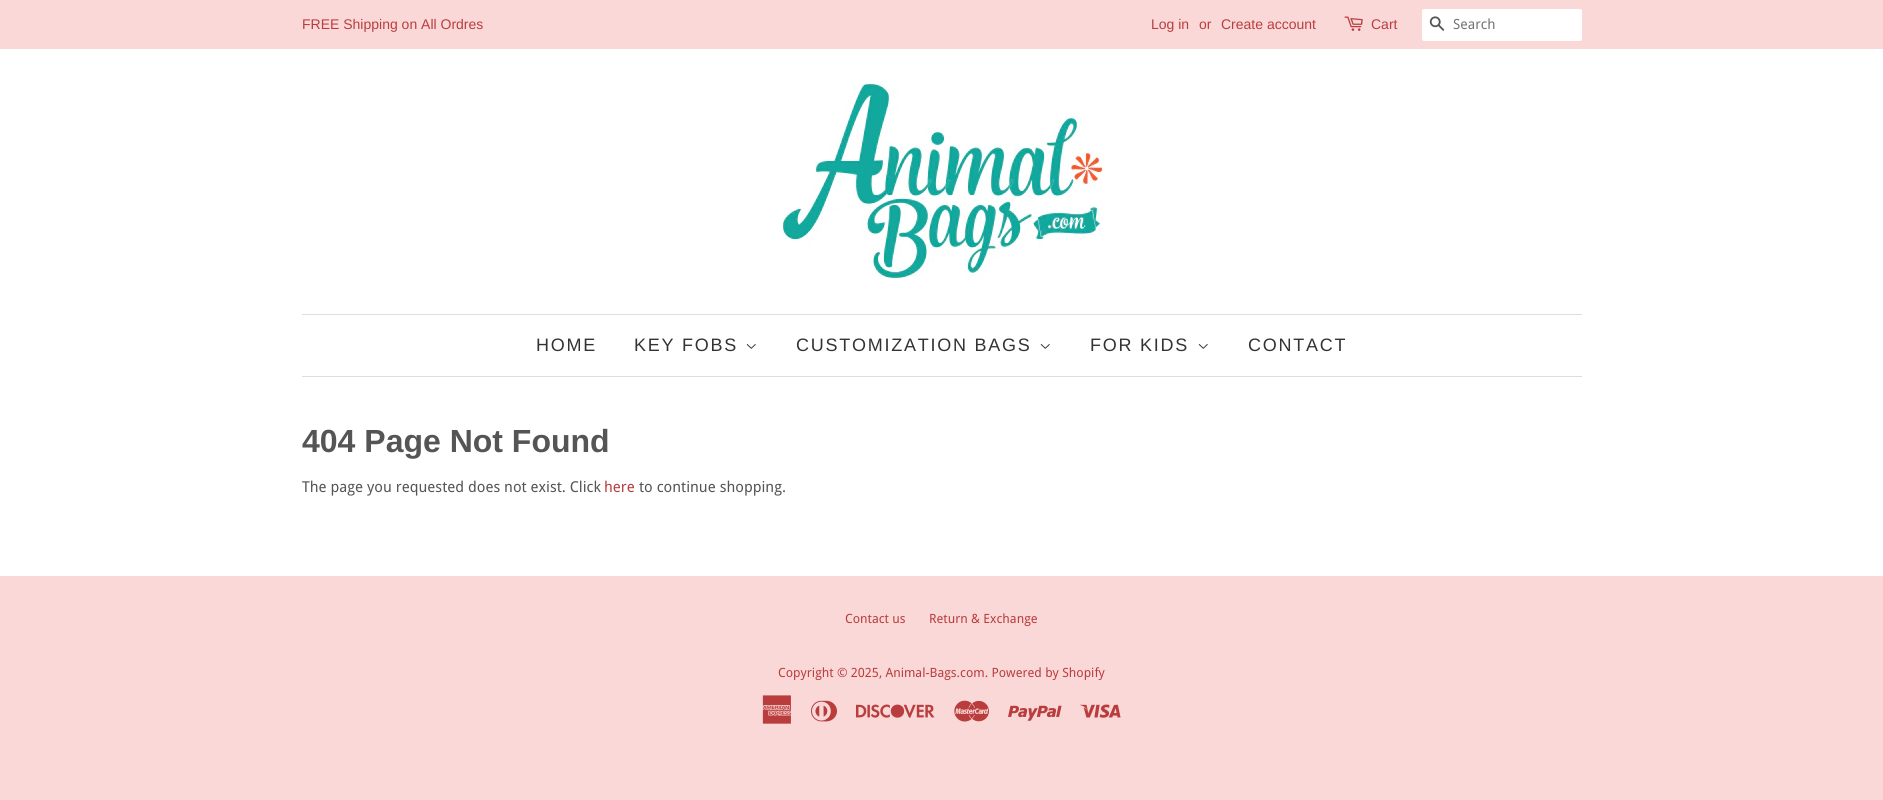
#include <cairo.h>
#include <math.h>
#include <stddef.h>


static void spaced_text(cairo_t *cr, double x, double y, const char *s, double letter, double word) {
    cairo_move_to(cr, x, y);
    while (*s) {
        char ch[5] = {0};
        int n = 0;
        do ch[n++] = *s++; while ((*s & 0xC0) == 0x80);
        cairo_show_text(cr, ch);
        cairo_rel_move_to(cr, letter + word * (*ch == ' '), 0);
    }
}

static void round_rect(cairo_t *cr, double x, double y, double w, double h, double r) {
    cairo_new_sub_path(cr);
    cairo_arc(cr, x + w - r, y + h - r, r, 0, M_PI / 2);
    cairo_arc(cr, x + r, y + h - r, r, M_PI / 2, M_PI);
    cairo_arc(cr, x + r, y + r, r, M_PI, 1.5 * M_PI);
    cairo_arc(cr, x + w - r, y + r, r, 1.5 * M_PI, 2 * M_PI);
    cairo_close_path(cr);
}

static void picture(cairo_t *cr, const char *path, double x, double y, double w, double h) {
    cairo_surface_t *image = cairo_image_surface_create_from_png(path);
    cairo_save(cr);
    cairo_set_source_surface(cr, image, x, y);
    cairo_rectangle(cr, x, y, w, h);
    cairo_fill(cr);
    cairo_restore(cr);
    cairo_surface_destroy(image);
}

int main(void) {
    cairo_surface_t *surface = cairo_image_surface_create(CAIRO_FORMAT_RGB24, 1883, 800);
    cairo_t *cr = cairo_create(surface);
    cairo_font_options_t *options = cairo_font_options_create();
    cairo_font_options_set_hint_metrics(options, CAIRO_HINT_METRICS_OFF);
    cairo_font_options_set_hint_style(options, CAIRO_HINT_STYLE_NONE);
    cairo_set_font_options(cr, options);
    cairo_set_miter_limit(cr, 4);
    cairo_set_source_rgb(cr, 0.984, 0.847, 0.847);
    cairo_paint(cr);
    cairo_set_source_rgb(cr, 1, 1, 1);
    cairo_rectangle(cr, 0, 49, 1883, 527);
    cairo_fill(cr);
    cairo_select_font_face(cr, "Liberation Sans", CAIRO_FONT_SLANT_NORMAL, CAIRO_FONT_WEIGHT_NORMAL);
    cairo_set_font_size(cr, 14);
    cairo_set_source_rgb(cr, 0.725, 0.239, 0.239);
    cairo_move_to(cr, 302, 29);
    cairo_show_text(cr, "FREE Shipping on All Ordres");
    cairo_move_to(cr, 1151, 29);
    cairo_show_text(cr, "Log in");
    cairo_move_to(cr, 1199, 29);
    cairo_show_text(cr, "or");
    cairo_move_to(cr, 1221, 29);
    cairo_show_text(cr, "Create account");
    picture(cr, "img1.png", 1344, 16, 19, 15);
    cairo_move_to(cr, 1371, 29);
    cairo_show_text(cr, "Cart");
    cairo_set_source_rgb(cr, 1, 1, 1);
    round_rect(cr, 1422, 9, 160, 32, 2);
    cairo_fill(cr);
    picture(cr, "img2.png", 1429, 16, 16, 15);
    cairo_select_font_face(cr, "Droid Sans", CAIRO_FONT_SLANT_NORMAL, CAIRO_FONT_WEIGHT_NORMAL);
    cairo_set_source_rgb(cr, 0.459, 0.459, 0.459);
    cairo_move_to(cr, 1453, 29);
    cairo_show_text(cr, "Search");
    picture(cr, "img3.png", 781, 79, 322, 201);
    cairo_set_source_rgb(cr, 0.867, 0.867, 0.867);
    cairo_rectangle(cr, 302, 314, 1280, 1);
    cairo_fill(cr);
    cairo_rectangle(cr, 302, 376, 1280, 1);
    cairo_fill(cr);
    cairo_select_font_face(cr, "Liberation Sans", CAIRO_FONT_SLANT_NORMAL, CAIRO_FONT_WEIGHT_NORMAL);
    cairo_set_font_size(cr, 18);
    cairo_set_source_rgb(cr, 0.2, 0.2, 0.2);
    spaced_text(cr, 536, 351, "HOME", 1.75, 0);
    spaced_text(cr, 634, 351, "KEY FOBS", 1.75, 0);
    picture(cr, "img4.png", 746, 344, 10, 5);
    spaced_text(cr, 796, 351, "CUSTOMIZATION BAGS", 1.75, 0);
    picture(cr, "img4.png", 1040, 344, 10, 5);
    spaced_text(cr, 1090, 351, "FOR KIDS", 1.75, 0);
    picture(cr, "img4.png", 1198, 344, 10, 5);
    spaced_text(cr, 1248, 351, "CONTACT", 1.75, 0);
    cairo_select_font_face(cr, "Liberation Sans", CAIRO_FONT_SLANT_NORMAL, CAIRO_FONT_WEIGHT_BOLD);
    cairo_set_font_size(cr, 32);
    cairo_set_source_rgb(cr, 0.333, 0.333, 0.333);
    cairo_move_to(cr, 302, 452);
    cairo_show_text(cr, "404 Page Not Found");
    cairo_select_font_face(cr, "Droid Sans", CAIRO_FONT_SLANT_NORMAL, CAIRO_FONT_WEIGHT_NORMAL);
    cairo_set_font_size(cr, 15);
    cairo_move_to(cr, 302, 492);
    cairo_show_text(cr, "The page you requested does not exist. Click");
    cairo_set_source_rgb(cr, 0.725, 0.239, 0.239);
    cairo_move_to(cr, 604, 492);
    cairo_show_text(cr, "here");
    cairo_set_source_rgb(cr, 0.333, 0.333, 0.333);
    cairo_move_to(cr, 639, 492);
    cairo_show_text(cr, "to continue shopping.");
    cairo_set_font_size(cr, 12.75);
    cairo_set_source_rgb(cr, 0.725, 0.239, 0.239);
    cairo_move_to(cr, 845, 623);
    cairo_show_text(cr, "Contact us");
    cairo_move_to(cr, 929, 623);
    cairo_show_text(cr, "Return & Exchange");
    cairo_move_to(cr, 778, 677);
    cairo_show_text(cr, "Copyright © 2025, Animal-Bags.com. Powered by Shopify");
    picture(cr, "img5.png", 762, 695, 30, 29);
    picture(cr, "img6.png", 811, 700, 26, 22);
    picture(cr, "img7.png", 856, 704, 79, 14);
    picture(cr, "img8.png", 954, 700, 35, 22);
    picture(cr, "img9.png", 1008, 705, 54, 16);
    picture(cr, "img10.png", 1080, 704, 41, 14);
    cairo_surface_write_to_png(surface, "page.png");
    cairo_font_options_destroy(options);
    cairo_destroy(cr);
    cairo_surface_destroy(surface);
    return 0;
}
